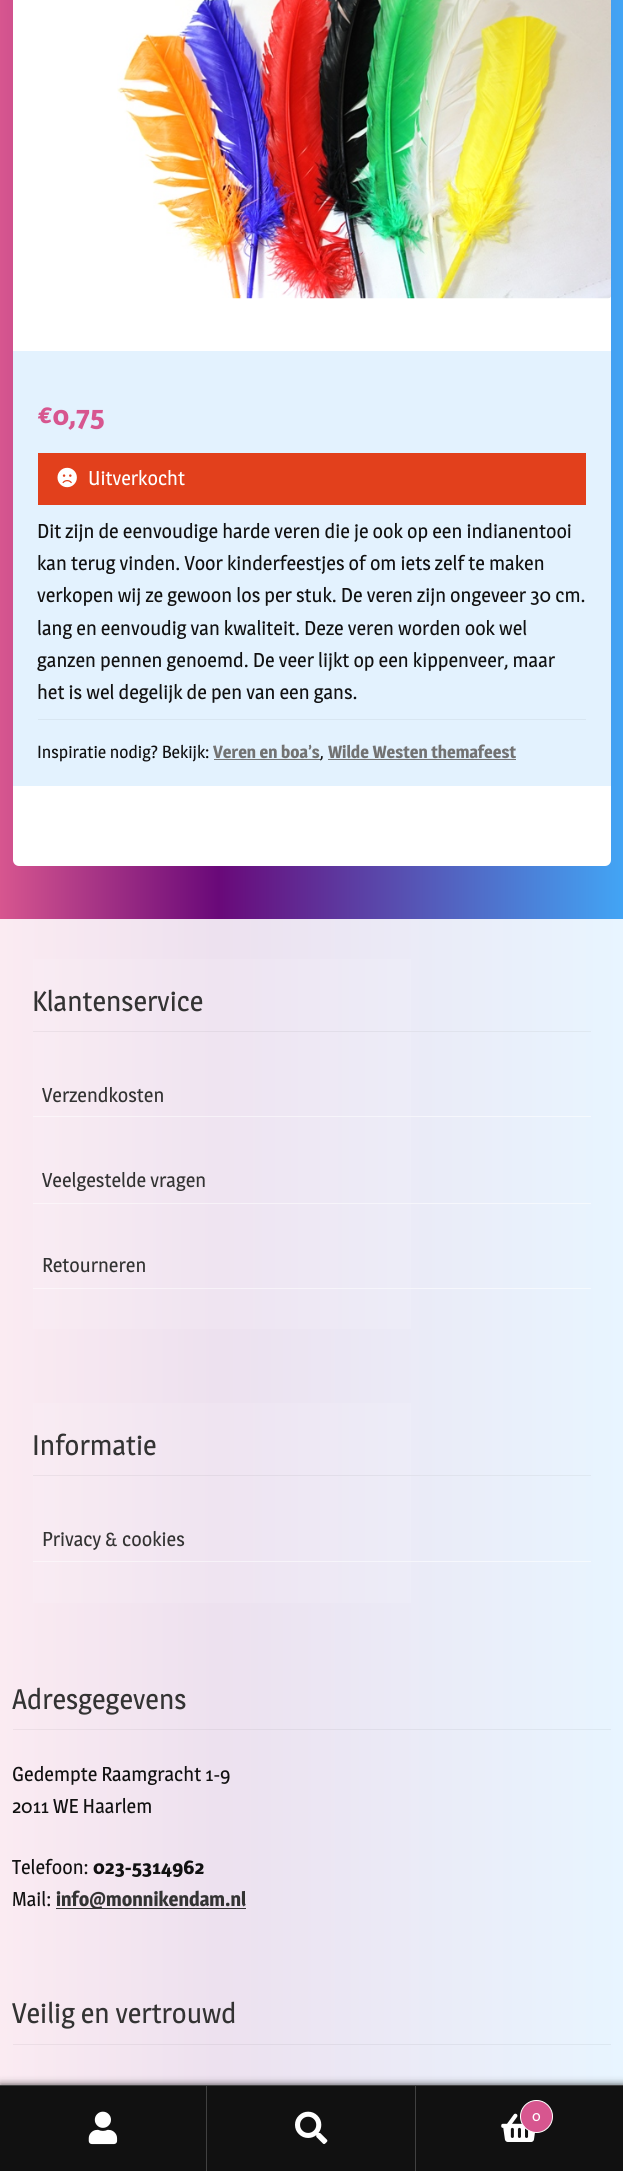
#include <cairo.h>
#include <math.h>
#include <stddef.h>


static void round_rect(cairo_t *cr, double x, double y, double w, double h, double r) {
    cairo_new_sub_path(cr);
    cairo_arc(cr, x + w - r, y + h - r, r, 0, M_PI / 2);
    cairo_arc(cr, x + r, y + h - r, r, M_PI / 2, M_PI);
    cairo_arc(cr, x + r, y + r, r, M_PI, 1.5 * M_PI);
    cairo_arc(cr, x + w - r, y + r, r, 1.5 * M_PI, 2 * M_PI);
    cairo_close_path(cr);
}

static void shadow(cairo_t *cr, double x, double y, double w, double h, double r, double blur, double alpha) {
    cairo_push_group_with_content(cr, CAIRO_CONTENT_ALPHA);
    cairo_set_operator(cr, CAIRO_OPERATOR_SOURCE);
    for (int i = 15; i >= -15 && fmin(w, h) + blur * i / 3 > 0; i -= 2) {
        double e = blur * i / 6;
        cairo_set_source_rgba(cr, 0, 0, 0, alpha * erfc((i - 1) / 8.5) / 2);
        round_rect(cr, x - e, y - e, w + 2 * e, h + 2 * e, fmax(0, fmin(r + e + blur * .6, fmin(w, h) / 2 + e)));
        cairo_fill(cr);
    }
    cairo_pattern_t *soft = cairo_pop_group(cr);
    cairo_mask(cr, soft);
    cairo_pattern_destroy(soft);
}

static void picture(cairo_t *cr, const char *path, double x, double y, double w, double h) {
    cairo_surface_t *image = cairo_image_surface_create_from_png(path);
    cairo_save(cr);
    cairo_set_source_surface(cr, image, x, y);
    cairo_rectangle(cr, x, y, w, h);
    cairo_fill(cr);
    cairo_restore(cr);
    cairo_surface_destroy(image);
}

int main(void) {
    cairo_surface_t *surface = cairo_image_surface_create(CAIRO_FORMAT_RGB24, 623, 2171);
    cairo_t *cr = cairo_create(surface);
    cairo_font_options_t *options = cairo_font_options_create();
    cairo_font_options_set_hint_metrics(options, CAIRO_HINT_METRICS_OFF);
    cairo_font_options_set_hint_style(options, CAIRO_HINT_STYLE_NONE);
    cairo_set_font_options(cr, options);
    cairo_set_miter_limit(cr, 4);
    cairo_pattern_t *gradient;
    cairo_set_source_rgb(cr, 1, 1, 1);
    cairo_paint(cr);
    gradient = cairo_pattern_create_linear(0, 386, 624, 386);
    cairo_pattern_add_color_stop_rgba(gradient, 0, 0.843, 0.337, 0.561, 1);
    cairo_pattern_add_color_stop_rgba(gradient, 0.35, 0.412, 0.035, 0.475, 1);
    cairo_pattern_add_color_stop_rgba(gradient, 1, 0.259, 0.647, 0.961, 1);
    cairo_set_source(cr, gradient);
    cairo_pattern_destroy(gradient);
    cairo_rectangle(cr, 0, 0, 623, 919);
    cairo_fill(cr);
    cairo_set_source_rgb(cr, 1, 1, 1);
    round_rect(cr, 13, -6, 598, 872, 6);
    cairo_fill(cr);
    picture(cr, "img1.png", 117, 0, 494, 299);
    cairo_set_source_rgb(cr, 0.89, 0.949, 0.996);
    cairo_rectangle(cr, 13, 351, 598, 435);
    cairo_fill(cr);
    cairo_select_font_face(cr, "Magra", CAIRO_FONT_SLANT_NORMAL, CAIRO_FONT_WEIGHT_BOLD);
    cairo_set_font_size(cr, 28.25);
    cairo_set_source_rgb(cr, 0.843, 0.337, 0.561);
    cairo_move_to(cr, 37, 425);
    cairo_show_text(cr, "€0,75");
    cairo_set_source_rgb(cr, 0.886, 0.251, 0.11);
    cairo_rectangle(cr, 38, 453, 548, 52);
    cairo_fill(cr);
    picture(cr, "img2.png", 57, 467, 20, 21);
    cairo_select_font_face(cr, "Magra", CAIRO_FONT_SLANT_NORMAL, CAIRO_FONT_WEIGHT_NORMAL);
    cairo_set_font_size(cr, 20);
    cairo_set_source_rgb(cr, 1, 1, 1);
    cairo_move_to(cr, 88, 485);
    cairo_show_text(cr, "Uitverkocht");
    cairo_set_source_rgb(cr, 0.067, 0.067, 0.067);
    cairo_move_to(cr, 37, 538);
    cairo_show_text(cr, "Dit zijn de eenvoudige harde veren die je ook op een indianentooi");
    cairo_move_to(cr, 37, 570);
    cairo_show_text(cr, "kan terug vinden. Voor kinderfeestjes of om iets zelf te maken");
    cairo_move_to(cr, 37, 602);
    cairo_show_text(cr, "verkopen wij ze gewoon los per stuk. De veren zijn ongeveer 30 cm.");
    cairo_move_to(cr, 37, 635);
    cairo_show_text(cr, "lang en eenvoudig van kwaliteit. Deze veren worden ook wel");
    cairo_move_to(cr, 37, 667);
    cairo_show_text(cr, "ganzen pennen genoemd. De veer lijkt op een kippenveer, maar");
    cairo_move_to(cr, 37, 699);
    cairo_show_text(cr, "het is wel degelijk de pen van een gans.");
    cairo_set_source_rgb(cr, 0.847, 0.902, 0.945);
    cairo_rectangle(cr, 38, 719, 548, 1);
    cairo_fill(cr);
    cairo_set_font_size(cr, 17.5);
    cairo_set_source_rgb(cr, 0.067, 0.067, 0.067);
    cairo_move_to(cr, 37, 758);
    cairo_show_text(cr, "Inspiratie nodig? Bekijk:");
    cairo_select_font_face(cr, "Magra", CAIRO_FONT_SLANT_NORMAL, CAIRO_FONT_WEIGHT_BOLD);
    cairo_set_source_rgb(cr, 0.447, 0.447, 0.447);
    cairo_move_to(cr, 213, 758);
    cairo_show_text(cr, "Veren en boa’s");
    cairo_rectangle(cr, 214, 759, 106, 1);
    cairo_fill(cr);
    cairo_select_font_face(cr, "Magra", CAIRO_FONT_SLANT_NORMAL, CAIRO_FONT_WEIGHT_NORMAL);
    cairo_set_source_rgb(cr, 0.067, 0.067, 0.067);
    cairo_move_to(cr, 320, 758);
    cairo_show_text(cr, ",");
    cairo_select_font_face(cr, "Magra", CAIRO_FONT_SLANT_NORMAL, CAIRO_FONT_WEIGHT_BOLD);
    cairo_set_source_rgb(cr, 0.447, 0.447, 0.447);
    cairo_move_to(cr, 328, 758);
    cairo_show_text(cr, "Wilde Westen themafeest");
    cairo_rectangle(cr, 328, 759, 188, 1);
    cairo_fill(cr);
    gradient = cairo_pattern_create_linear(0, 1676, 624, 1676);
    cairo_pattern_add_color_stop_rgba(gradient, 0, 0.984, 0.922, 0.949, 1);
    cairo_pattern_add_color_stop_rgba(gradient, 0.35, 0.929, 0.882, 0.937, 1);
    cairo_pattern_add_color_stop_rgba(gradient, 1, 0.91, 0.961, 1, 1);
    cairo_set_source(cr, gradient);
    cairo_pattern_destroy(gradient);
    cairo_rectangle(cr, 0, 919, 623, 1166);
    cairo_fill(cr);
    gradient = cairo_pattern_create_linear(0, 1676, 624, 1676);
    cairo_pattern_add_color_stop_rgba(gradient, 0, 0.933, 0.875, 0.902, 1);
    cairo_pattern_add_color_stop_rgba(gradient, 0.35, 0.882, 0.839, 0.89, 1);
    cairo_pattern_add_color_stop_rgba(gradient, 1, 0.863, 0.914, 0.949, 1);
    cairo_set_source(cr, gradient);
    cairo_pattern_destroy(gradient);
    cairo_rectangle(cr, 13, 2044, 598, 1);
    cairo_fill(cr);
    cairo_rectangle(cr, 13, 1729, 598, 1);
    cairo_fill(cr);
    gradient = cairo_pattern_create_linear(0, 1676, 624, 1676);
    cairo_pattern_add_color_stop_rgba(gradient, 0, 0.984, 0.929, 0.953, 1);
    cairo_pattern_add_color_stop_rgba(gradient, 0.35, 0.937, 0.894, 0.945, 1);
    cairo_pattern_add_color_stop_rgba(gradient, 1, 0.918, 0.965, 1, 1);
    cairo_set_source(cr, gradient);
    cairo_pattern_destroy(gradient);
    cairo_rectangle(cr, 33, 1403, 378, 200);
    cairo_fill(cr);
    gradient = cairo_pattern_create_linear(0, 1676, 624, 1676);
    cairo_pattern_add_color_stop_rgba(gradient, 0, 0.992, 0.965, 0.976, 1);
    cairo_pattern_add_color_stop_rgba(gradient, 0.35, 0.969, 0.949, 0.973, 1);
    cairo_pattern_add_color_stop_rgba(gradient, 1, 0.961, 0.984, 1, 1);
    cairo_set_source(cr, gradient);
    cairo_pattern_destroy(gradient);
    cairo_rectangle(cr, 33, 1561, 558, 1);
    cairo_fill(cr);
    gradient = cairo_pattern_create_linear(0, 1676, 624, 1676);
    cairo_pattern_add_color_stop_rgba(gradient, 0, 0.933, 0.882, 0.906, 1);
    cairo_pattern_add_color_stop_rgba(gradient, 0.35, 0.89, 0.851, 0.898, 1);
    cairo_pattern_add_color_stop_rgba(gradient, 1, 0.871, 0.918, 0.949, 1);
    cairo_set_source(cr, gradient);
    cairo_pattern_destroy(gradient);
    cairo_rectangle(cr, 33, 1475, 558, 1);
    cairo_fill(cr);
    gradient = cairo_pattern_create_linear(0, 1676, 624, 1676);
    cairo_pattern_add_color_stop_rgba(gradient, 0, 0.984, 0.929, 0.953, 1);
    cairo_pattern_add_color_stop_rgba(gradient, 0.35, 0.937, 0.894, 0.945, 1);
    cairo_pattern_add_color_stop_rgba(gradient, 1, 0.918, 0.965, 1, 1);
    cairo_set_source(cr, gradient);
    cairo_pattern_destroy(gradient);
    cairo_rectangle(cr, 33, 959, 378, 370);
    cairo_fill(cr);
    gradient = cairo_pattern_create_linear(0, 1676, 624, 1676);
    cairo_pattern_add_color_stop_rgba(gradient, 0, 0.992, 0.965, 0.976, 1);
    cairo_pattern_add_color_stop_rgba(gradient, 0.35, 0.969, 0.949, 0.973, 1);
    cairo_pattern_add_color_stop_rgba(gradient, 1, 0.961, 0.984, 1, 1);
    cairo_set_source(cr, gradient);
    cairo_pattern_destroy(gradient);
    cairo_rectangle(cr, 33, 1288, 558, 1);
    cairo_fill(cr);
    cairo_rectangle(cr, 33, 1203, 558, 1);
    cairo_fill(cr);
    cairo_rectangle(cr, 33, 1116, 558, 1);
    cairo_fill(cr);
    gradient = cairo_pattern_create_linear(0, 1676, 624, 1676);
    cairo_pattern_add_color_stop_rgba(gradient, 0, 0.933, 0.882, 0.906, 1);
    cairo_pattern_add_color_stop_rgba(gradient, 0.35, 0.89, 0.851, 0.898, 1);
    cairo_pattern_add_color_stop_rgba(gradient, 1, 0.871, 0.918, 0.949, 1);
    cairo_set_source(cr, gradient);
    cairo_pattern_destroy(gradient);
    cairo_rectangle(cr, 33, 1031, 558, 1);
    cairo_fill(cr);
    cairo_select_font_face(cr, "Magra", CAIRO_FONT_SLANT_NORMAL, CAIRO_FONT_WEIGHT_NORMAL);
    cairo_set_font_size(cr, 28.25);
    cairo_set_source_rgb(cr, 0.2, 0.2, 0.2);
    cairo_move_to(cr, 32, 1011);
    cairo_show_text(cr, "Klantenservice");
    cairo_set_font_size(cr, 20);
    cairo_move_to(cr, 42, 1102);
    cairo_show_text(cr, "Verzendkosten");
    cairo_move_to(cr, 42, 1187);
    cairo_show_text(cr, "Veelgestelde vragen");
    cairo_move_to(cr, 42, 1272);
    cairo_show_text(cr, "Retourneren");
    cairo_set_font_size(cr, 28.25);
    cairo_move_to(cr, 32, 1455);
    cairo_show_text(cr, "Informatie");
    cairo_set_font_size(cr, 20);
    cairo_move_to(cr, 42, 1546);
    cairo_show_text(cr, "Privacy & cookies");
    cairo_set_font_size(cr, 28.25);
    cairo_move_to(cr, 12, 1709);
    cairo_show_text(cr, "Adresgegevens");
    cairo_set_font_size(cr, 20);
    cairo_set_source_rgb(cr, 0.067, 0.067, 0.067);
    cairo_move_to(cr, 12, 1781);
    cairo_show_text(cr, "Gedempte Raamgracht 1-9");
    cairo_move_to(cr, 12, 1813);
    cairo_show_text(cr, "2011 WE Haarlem");
    cairo_move_to(cr, 12, 1874);
    cairo_show_text(cr, "Telefoon:");
    cairo_select_font_face(cr, "Magra", CAIRO_FONT_SLANT_NORMAL, CAIRO_FONT_WEIGHT_BOLD);
    cairo_move_to(cr, 93, 1874);
    cairo_show_text(cr, "023-5314962");
    cairo_select_font_face(cr, "Magra", CAIRO_FONT_SLANT_NORMAL, CAIRO_FONT_WEIGHT_NORMAL);
    cairo_move_to(cr, 12, 1906);
    cairo_show_text(cr, "Mail:");
    cairo_set_source_rgb(cr, 0.2, 0.2, 0.2);
    cairo_rectangle(cr, 56, 1908, 190, 1);
    cairo_fill(cr);
    cairo_select_font_face(cr, "Magra", CAIRO_FONT_SLANT_NORMAL, CAIRO_FONT_WEIGHT_BOLD);
    cairo_move_to(cr, 56, 1906);
    cairo_show_text(cr, "info@monnikendam.nl");
    cairo_select_font_face(cr, "Magra", CAIRO_FONT_SLANT_NORMAL, CAIRO_FONT_WEIGHT_NORMAL);
    cairo_set_font_size(cr, 28.25);
    cairo_move_to(cr, 12, 2023);
    cairo_show_text(cr, "Veilig en vertrouwd");
    cairo_set_source_rgb(cr, 0, 0, 0);
    shadow(cr, 0, 2085, 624, 86, 0, 4, 0.7);
    cairo_set_source_rgb(cr, 0.255, 0.255, 0.255);
    cairo_rectangle(cr, 0, 2085, 623, 1);
    cairo_fill(cr);
    cairo_set_source_rgb(cr, 0.067, 0.067, 0.067);
    cairo_rectangle(cr, 0, 2086, 415, 85);
    cairo_fill(cr);
    cairo_set_source_rgb(cr, 0.255, 0.255, 0.255);
    cairo_rectangle(cr, 206, 2086, 1, 85);
    cairo_fill(cr);
    picture(cr, "img3.png", 88, 2111, 30, 34);
    cairo_rectangle(cr, 415, 2086, 1, 85);
    cairo_fill(cr);
    picture(cr, "img4.png", 295, 2111, 33, 33);
    cairo_set_source_rgb(cr, 0.067, 0.067, 0.067);
    cairo_rectangle(cr, 416, 2086, 207, 85);
    cairo_fill(cr);
    picture(cr, "img5.png", 501, 2113, 34, 29);
    cairo_set_source_rgb(cr, 0.843, 0.337, 0.561);
    cairo_arc(cr, 536.5, 2116.5, 16, 0, 2 * M_PI);
    cairo_fill_preserve(cr);
    cairo_set_source_rgb(cr, 1, 1, 1);
    cairo_set_line_width(cr, 1);
    cairo_stroke(cr);
    cairo_set_font_size(cr, 15);
    cairo_move_to(cr, 532, 2121);
    cairo_show_text(cr, "0");
    cairo_surface_write_to_png(surface, "page.png");
    cairo_font_options_destroy(options);
    cairo_destroy(cr);
    cairo_surface_destroy(surface);
    return 0;
}
